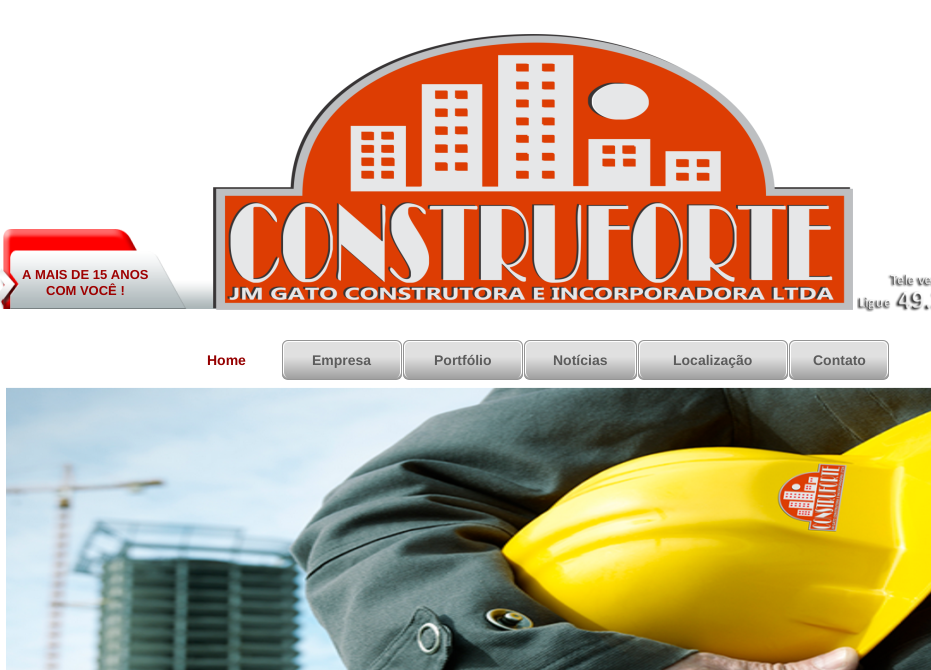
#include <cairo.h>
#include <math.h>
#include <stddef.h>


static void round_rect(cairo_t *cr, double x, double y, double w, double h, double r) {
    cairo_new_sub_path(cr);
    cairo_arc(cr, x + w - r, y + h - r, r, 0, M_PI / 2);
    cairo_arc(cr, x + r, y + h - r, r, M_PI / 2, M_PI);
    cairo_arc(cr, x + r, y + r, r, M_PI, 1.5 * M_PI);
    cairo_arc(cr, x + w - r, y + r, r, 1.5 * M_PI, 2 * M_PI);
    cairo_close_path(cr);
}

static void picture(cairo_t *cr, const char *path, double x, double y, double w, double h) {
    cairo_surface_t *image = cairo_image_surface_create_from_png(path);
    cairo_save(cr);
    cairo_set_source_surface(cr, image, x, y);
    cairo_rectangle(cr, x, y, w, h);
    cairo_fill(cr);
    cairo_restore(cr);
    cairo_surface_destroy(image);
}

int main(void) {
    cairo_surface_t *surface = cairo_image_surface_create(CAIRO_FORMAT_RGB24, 931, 670);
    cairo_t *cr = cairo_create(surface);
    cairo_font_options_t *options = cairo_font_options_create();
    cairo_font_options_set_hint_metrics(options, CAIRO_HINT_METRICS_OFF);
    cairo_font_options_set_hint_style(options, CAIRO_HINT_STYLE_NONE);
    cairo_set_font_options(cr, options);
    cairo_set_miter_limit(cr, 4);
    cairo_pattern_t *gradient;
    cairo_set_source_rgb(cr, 1, 1, 1);
    cairo_paint(cr);
    picture(cr, "img1.png", 0, 229, 217, 80);
    picture(cr, "img2.png", 213, 34, 640, 276);
    cairo_select_font_face(cr, "Liberation Sans", CAIRO_FONT_SLANT_NORMAL, CAIRO_FONT_WEIGHT_BOLD);
    cairo_set_font_size(cr, 13);
    cairo_set_source_rgb(cr, 0.62, 0, 0);
    cairo_move_to(cr, 22, 279);
    cairo_show_text(cr, "A MAIS DE 15 ANOS");
    cairo_move_to(cr, 46, 295);
    cairo_show_text(cr, "COM VOCÊ !");
    picture(cr, "img3.png", 857, 274, 74, 38);
    cairo_set_font_size(cr, 14);
    cairo_set_source_rgb(cr, 0.584, 0, 0);
    cairo_move_to(cr, 207, 365);
    cairo_show_text(cr, "Home");
    cairo_save(cr);
    round_rect(cr, 282, 340, 120, 40, 6);
    cairo_clip(cr);
    gradient = cairo_pattern_create_linear(283, 357, 283, 381);
    cairo_pattern_add_color_stop_rgba(gradient, 0, 0.878, 0.878, 0.878, 1);
    cairo_pattern_add_color_stop_rgba(gradient, 1, 0.6, 0.6, 0.6, 1);
    cairo_set_source(cr, gradient);
    cairo_pattern_destroy(gradient);
    cairo_rectangle(cr, 282, 341, 120, 38);
    cairo_fill(cr);
    cairo_restore(cr);
    round_rect(cr, 282.5, 340.5, 119, 39, 5.5);
    cairo_set_source_rgb(cr, 0.584, 0.584, 0.584);
    cairo_set_line_width(cr, 1);
    cairo_stroke(cr);
    cairo_set_source_rgb(cr, 1, 1, 1);
    cairo_set_fill_rule(cr, CAIRO_FILL_RULE_EVEN_ODD);
    cairo_new_path(cr);
    cairo_move_to(cr, 289, 341);
    cairo_line_to(cr, 395, 341);
    cairo_curve_to(cr, 398, 341, 401, 344, 401, 347);
    cairo_line_to(cr, 401, 372);
    cairo_curve_to(cr, 401, 375, 398, 378, 395, 378);
    cairo_line_to(cr, 289, 378);
    cairo_curve_to(cr, 286, 378, 283, 375, 283, 372);
    cairo_line_to(cr, 283, 347);
    cairo_curve_to(cr, 283, 344, 286, 341, 289, 341);
    cairo_close_path(cr);
    cairo_move_to(cr, 289, 342);
    cairo_line_to(cr, 395, 342);
    cairo_curve_to(cr, 398, 342, 400, 344, 400, 347);
    cairo_line_to(cr, 400, 372);
    cairo_curve_to(cr, 400, 375, 398, 378, 395, 378);
    cairo_line_to(cr, 289, 378);
    cairo_curve_to(cr, 286, 378, 284, 375, 284, 372);
    cairo_line_to(cr, 284, 347);
    cairo_curve_to(cr, 284, 344, 286, 342, 289, 342);
    cairo_close_path(cr);
    cairo_fill(cr);
    cairo_set_source_rgb(cr, 0.361, 0.361, 0.361);
    cairo_move_to(cr, 312, 365);
    cairo_show_text(cr, "Empresa");
    cairo_save(cr);
    cairo_set_fill_rule(cr, CAIRO_FILL_RULE_WINDING);
    round_rect(cr, 403, 340, 120, 40, 6);
    cairo_clip(cr);
    gradient = cairo_pattern_create_linear(404, 357, 404, 381);
    cairo_pattern_add_color_stop_rgba(gradient, 0, 0.878, 0.878, 0.878, 1);
    cairo_pattern_add_color_stop_rgba(gradient, 1, 0.6, 0.6, 0.6, 1);
    cairo_set_source(cr, gradient);
    cairo_pattern_destroy(gradient);
    cairo_rectangle(cr, 403, 341, 120, 38);
    cairo_fill(cr);
    cairo_restore(cr);
    round_rect(cr, 403.5, 340.5, 119, 39, 5.5);
    cairo_set_source_rgb(cr, 0.584, 0.584, 0.584);
    cairo_stroke(cr);
    cairo_set_source_rgb(cr, 1, 1, 1);
    cairo_new_path(cr);
    cairo_move_to(cr, 410, 341);
    cairo_line_to(cr, 516, 341);
    cairo_curve_to(cr, 519, 341, 522, 344, 522, 347);
    cairo_line_to(cr, 522, 372);
    cairo_curve_to(cr, 522, 375, 519, 378, 516, 378);
    cairo_line_to(cr, 410, 378);
    cairo_curve_to(cr, 407, 378, 404, 375, 404, 372);
    cairo_line_to(cr, 404, 347);
    cairo_curve_to(cr, 404, 344, 407, 341, 410, 341);
    cairo_close_path(cr);
    cairo_move_to(cr, 410, 342);
    cairo_line_to(cr, 516, 342);
    cairo_curve_to(cr, 519, 342, 521, 344, 521, 347);
    cairo_line_to(cr, 521, 372);
    cairo_curve_to(cr, 521, 375, 519, 378, 516, 378);
    cairo_line_to(cr, 410, 378);
    cairo_curve_to(cr, 407, 378, 405, 375, 405, 372);
    cairo_line_to(cr, 405, 347);
    cairo_curve_to(cr, 405, 344, 407, 342, 410, 342);
    cairo_close_path(cr);
    cairo_fill(cr);
    cairo_set_source_rgb(cr, 0.361, 0.361, 0.361);
    cairo_move_to(cr, 434, 365);
    cairo_show_text(cr, "Portfólio");
    cairo_save(cr);
    cairo_set_fill_rule(cr, CAIRO_FILL_RULE_WINDING);
    round_rect(cr, 524, 340, 113, 40, 6);
    cairo_clip(cr);
    gradient = cairo_pattern_create_linear(525, 357, 525, 381);
    cairo_pattern_add_color_stop_rgba(gradient, 0, 0.878, 0.878, 0.878, 1);
    cairo_pattern_add_color_stop_rgba(gradient, 1, 0.6, 0.6, 0.6, 1);
    cairo_set_source(cr, gradient);
    cairo_pattern_destroy(gradient);
    cairo_rectangle(cr, 524, 341, 113, 38);
    cairo_fill(cr);
    cairo_restore(cr);
    round_rect(cr, 524.5, 340.5, 112, 39, 5.5);
    cairo_set_source_rgb(cr, 0.584, 0.584, 0.584);
    cairo_stroke(cr);
    cairo_set_source_rgb(cr, 1, 1, 1);
    cairo_new_path(cr);
    cairo_move_to(cr, 531, 341);
    cairo_line_to(cr, 630, 341);
    cairo_curve_to(cr, 633, 341, 636, 344, 636, 347);
    cairo_line_to(cr, 636, 372);
    cairo_curve_to(cr, 636, 375, 633, 378, 630, 378);
    cairo_line_to(cr, 531, 378);
    cairo_curve_to(cr, 528, 378, 525, 375, 525, 372);
    cairo_line_to(cr, 525, 347);
    cairo_curve_to(cr, 525, 344, 528, 341, 531, 341);
    cairo_close_path(cr);
    cairo_move_to(cr, 531, 342);
    cairo_line_to(cr, 630, 342);
    cairo_curve_to(cr, 633, 342, 635, 344, 635, 347);
    cairo_line_to(cr, 635, 372);
    cairo_curve_to(cr, 635, 375, 633, 378, 630, 378);
    cairo_line_to(cr, 531, 378);
    cairo_curve_to(cr, 528, 378, 526, 375, 526, 372);
    cairo_line_to(cr, 526, 347);
    cairo_curve_to(cr, 526, 344, 528, 342, 531, 342);
    cairo_close_path(cr);
    cairo_fill(cr);
    cairo_set_source_rgb(cr, 0.361, 0.361, 0.361);
    cairo_move_to(cr, 553, 365);
    cairo_show_text(cr, "Notícias");
    cairo_save(cr);
    cairo_set_fill_rule(cr, CAIRO_FILL_RULE_WINDING);
    round_rect(cr, 638, 340, 150, 40, 6);
    cairo_clip(cr);
    gradient = cairo_pattern_create_linear(639, 357, 639, 381);
    cairo_pattern_add_color_stop_rgba(gradient, 0, 0.878, 0.878, 0.878, 1);
    cairo_pattern_add_color_stop_rgba(gradient, 1, 0.6, 0.6, 0.6, 1);
    cairo_set_source(cr, gradient);
    cairo_pattern_destroy(gradient);
    cairo_rectangle(cr, 638, 341, 150, 38);
    cairo_fill(cr);
    cairo_restore(cr);
    round_rect(cr, 638.5, 340.5, 149, 39, 5.5);
    cairo_set_source_rgb(cr, 0.584, 0.584, 0.584);
    cairo_stroke(cr);
    cairo_set_source_rgb(cr, 1, 1, 1);
    cairo_new_path(cr);
    cairo_move_to(cr, 645, 341);
    cairo_line_to(cr, 781, 341);
    cairo_curve_to(cr, 784, 341, 787, 344, 787, 347);
    cairo_line_to(cr, 787, 372);
    cairo_curve_to(cr, 787, 375, 784, 378, 781, 378);
    cairo_line_to(cr, 645, 378);
    cairo_curve_to(cr, 642, 378, 639, 375, 639, 372);
    cairo_line_to(cr, 639, 347);
    cairo_curve_to(cr, 639, 344, 642, 341, 645, 341);
    cairo_close_path(cr);
    cairo_move_to(cr, 645, 342);
    cairo_line_to(cr, 781, 342);
    cairo_curve_to(cr, 784, 342, 786, 344, 786, 347);
    cairo_line_to(cr, 786, 372);
    cairo_curve_to(cr, 786, 375, 784, 378, 781, 378);
    cairo_line_to(cr, 645, 378);
    cairo_curve_to(cr, 642, 378, 640, 375, 640, 372);
    cairo_line_to(cr, 640, 347);
    cairo_curve_to(cr, 640, 344, 642, 342, 645, 342);
    cairo_close_path(cr);
    cairo_fill(cr);
    cairo_set_source_rgb(cr, 0.361, 0.361, 0.361);
    cairo_move_to(cr, 673, 365);
    cairo_show_text(cr, "Localização");
    cairo_save(cr);
    cairo_set_fill_rule(cr, CAIRO_FILL_RULE_WINDING);
    round_rect(cr, 789, 340, 100, 40, 6);
    cairo_clip(cr);
    gradient = cairo_pattern_create_linear(790, 357, 790, 381);
    cairo_pattern_add_color_stop_rgba(gradient, 0, 0.878, 0.878, 0.878, 1);
    cairo_pattern_add_color_stop_rgba(gradient, 1, 0.6, 0.6, 0.6, 1);
    cairo_set_source(cr, gradient);
    cairo_pattern_destroy(gradient);
    cairo_rectangle(cr, 789, 341, 100, 38);
    cairo_fill(cr);
    cairo_restore(cr);
    round_rect(cr, 789.5, 340.5, 99, 39, 5.5);
    cairo_set_source_rgb(cr, 0.584, 0.584, 0.584);
    cairo_stroke(cr);
    cairo_set_source_rgb(cr, 1, 1, 1);
    cairo_new_path(cr);
    cairo_move_to(cr, 796, 341);
    cairo_line_to(cr, 882, 341);
    cairo_curve_to(cr, 885, 341, 888, 344, 888, 347);
    cairo_line_to(cr, 888, 372);
    cairo_curve_to(cr, 888, 375, 885, 378, 882, 378);
    cairo_line_to(cr, 796, 378);
    cairo_curve_to(cr, 793, 378, 790, 375, 790, 372);
    cairo_line_to(cr, 790, 347);
    cairo_curve_to(cr, 790, 344, 793, 341, 796, 341);
    cairo_close_path(cr);
    cairo_move_to(cr, 796, 342);
    cairo_line_to(cr, 882, 342);
    cairo_curve_to(cr, 885, 342, 887, 344, 887, 347);
    cairo_line_to(cr, 887, 372);
    cairo_curve_to(cr, 887, 375, 885, 378, 882, 378);
    cairo_line_to(cr, 796, 378);
    cairo_curve_to(cr, 793, 378, 791, 375, 791, 372);
    cairo_line_to(cr, 791, 347);
    cairo_curve_to(cr, 791, 344, 793, 342, 796, 342);
    cairo_close_path(cr);
    cairo_fill(cr);
    cairo_set_source_rgb(cr, 0.361, 0.361, 0.361);
    cairo_move_to(cr, 813, 365);
    cairo_show_text(cr, "Contato");
    picture(cr, "img4.png", 6, 387, 925, 283);
    cairo_surface_write_to_png(surface, "page.png");
    cairo_font_options_destroy(options);
    cairo_destroy(cr);
    cairo_surface_destroy(surface);
    return 0;
}
